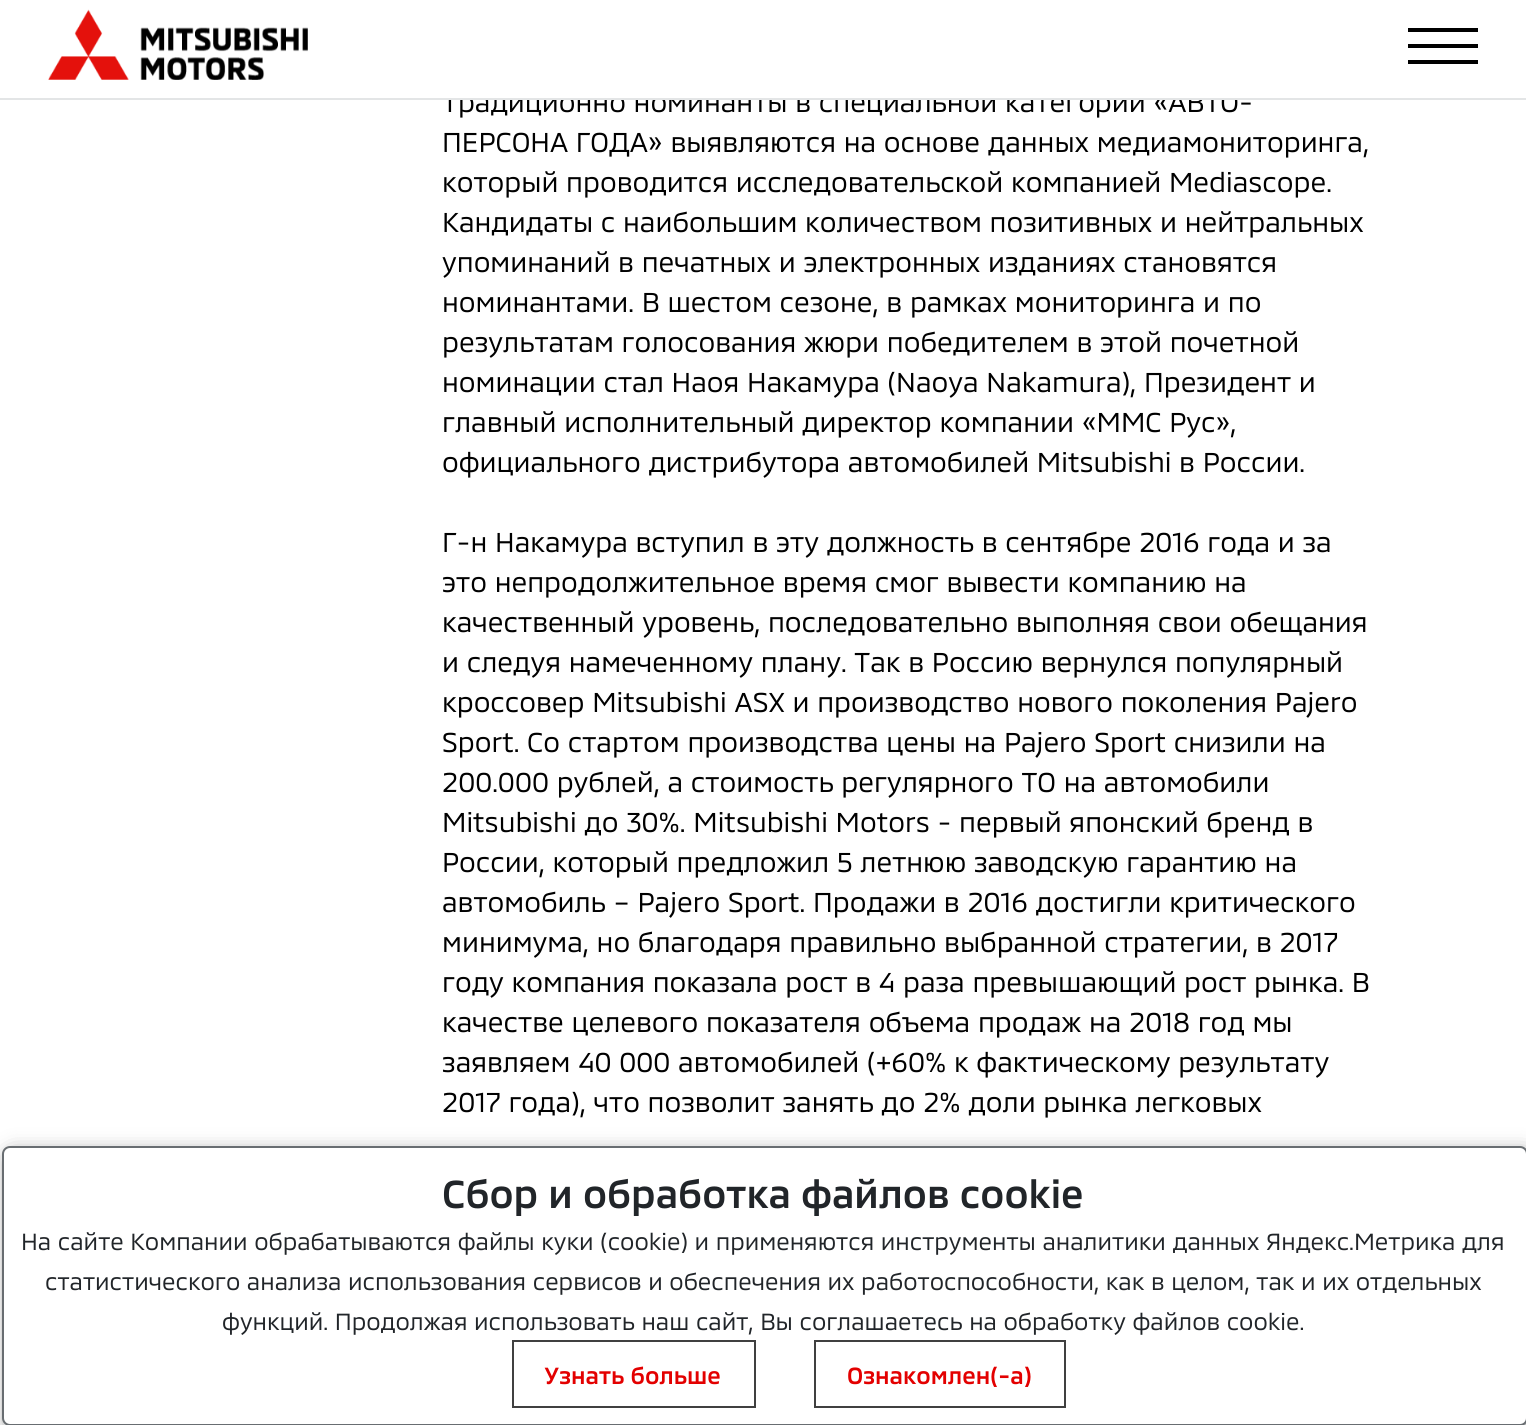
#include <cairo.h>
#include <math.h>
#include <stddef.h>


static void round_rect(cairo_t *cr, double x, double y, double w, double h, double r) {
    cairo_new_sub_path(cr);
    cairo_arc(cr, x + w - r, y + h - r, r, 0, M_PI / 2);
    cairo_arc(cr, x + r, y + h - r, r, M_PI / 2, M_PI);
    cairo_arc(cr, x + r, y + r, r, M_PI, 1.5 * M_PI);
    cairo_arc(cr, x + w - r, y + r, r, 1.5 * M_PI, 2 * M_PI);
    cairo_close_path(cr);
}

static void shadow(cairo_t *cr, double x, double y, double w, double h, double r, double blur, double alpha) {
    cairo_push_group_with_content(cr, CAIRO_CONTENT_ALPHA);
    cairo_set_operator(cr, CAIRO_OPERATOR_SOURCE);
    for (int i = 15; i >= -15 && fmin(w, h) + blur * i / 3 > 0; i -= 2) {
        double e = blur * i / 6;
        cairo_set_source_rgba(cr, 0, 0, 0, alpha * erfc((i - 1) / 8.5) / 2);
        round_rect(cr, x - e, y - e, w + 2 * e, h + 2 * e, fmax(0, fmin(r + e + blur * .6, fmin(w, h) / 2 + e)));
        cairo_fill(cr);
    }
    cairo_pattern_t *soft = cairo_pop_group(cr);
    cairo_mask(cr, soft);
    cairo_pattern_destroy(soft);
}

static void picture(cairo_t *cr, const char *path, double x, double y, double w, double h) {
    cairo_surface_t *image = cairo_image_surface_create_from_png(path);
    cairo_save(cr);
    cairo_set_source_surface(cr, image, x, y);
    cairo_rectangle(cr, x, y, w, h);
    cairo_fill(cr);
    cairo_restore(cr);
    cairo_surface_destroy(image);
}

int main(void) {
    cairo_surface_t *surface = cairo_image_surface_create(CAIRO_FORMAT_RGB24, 1526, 1425);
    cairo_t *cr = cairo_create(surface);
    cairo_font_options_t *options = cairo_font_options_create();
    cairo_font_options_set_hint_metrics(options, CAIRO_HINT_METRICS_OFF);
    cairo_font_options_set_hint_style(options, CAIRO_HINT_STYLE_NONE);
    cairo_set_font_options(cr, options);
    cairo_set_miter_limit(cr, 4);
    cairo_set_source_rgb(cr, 1, 1, 1);
    cairo_paint(cr);
    cairo_select_font_face(cr, "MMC", CAIRO_FONT_SLANT_NORMAL, CAIRO_FONT_WEIGHT_NORMAL);
    cairo_set_font_size(cr, 28);
    cairo_set_source_rgb(cr, 0, 0, 0);
    cairo_move_to(cr, 442, 112);
    cairo_show_text(cr, "Традиционно номинанты в специальной категории «АВТО-");
    cairo_set_source_rgb(cr, 1, 1, 1);
    cairo_rectangle(cr, 442, 91, 795, 7);
    cairo_fill(cr);
    cairo_set_source_rgb(cr, 0.89, 0.898, 0.902);
    cairo_rectangle(cr, 0, 98, 1526, 2);
    cairo_fill(cr);
    picture(cr, "img1.png", 48, 9, 260, 71);
    cairo_set_source_rgb(cr, 0, 0, 0);
    cairo_rectangle(cr, 1408, 28, 70, 4);
    cairo_fill(cr);
    cairo_rectangle(cr, 1408, 44, 70, 4);
    cairo_fill(cr);
    cairo_rectangle(cr, 1408, 60, 70, 4);
    cairo_fill(cr);
    cairo_move_to(cr, 442, 152);
    cairo_show_text(cr, "ПЕРСОНА ГОДА» выявляются на основе данных медиамониторинга,");
    cairo_move_to(cr, 442, 192);
    cairo_show_text(cr, "который проводится исследовательской компанией Mediascope.");
    cairo_move_to(cr, 442, 232);
    cairo_show_text(cr, "Кандидаты с наибольшим количеством позитивных и нейтральных");
    cairo_move_to(cr, 442, 272);
    cairo_show_text(cr, "упоминаний в печатных и электронных изданиях становятся");
    cairo_move_to(cr, 442, 312);
    cairo_show_text(cr, "номинантами. В шестом сезоне, в рамках мониторинга и по");
    cairo_move_to(cr, 442, 352);
    cairo_show_text(cr, "результатам голосования жюри победителем в этой почетной");
    cairo_move_to(cr, 442, 392);
    cairo_show_text(cr, "номинации стал Наоя Накамура (Naoya Nakamura), Президент и");
    cairo_move_to(cr, 442, 432);
    cairo_show_text(cr, "главный исполнительный директор компании «ММС Рус»,");
    cairo_move_to(cr, 442, 472);
    cairo_show_text(cr, "официального дистрибутора автомобилей Mitsubishi в России.");
    cairo_move_to(cr, 442, 552);
    cairo_show_text(cr, "Г-н Накамура вступил в эту должность в сентябре 2016 года и за");
    cairo_move_to(cr, 442, 592);
    cairo_show_text(cr, "это непродолжительное время смог вывести компанию на");
    cairo_move_to(cr, 442, 632);
    cairo_show_text(cr, "качественный уровень, последовательно выполняя свои обещания");
    cairo_move_to(cr, 442, 672);
    cairo_show_text(cr, "и следуя намеченному плану. Так в Россию вернулся популярный");
    cairo_move_to(cr, 442, 712);
    cairo_show_text(cr, "кроссовер Mitsubishi ASX и производство нового поколения Pajero");
    cairo_move_to(cr, 442, 752);
    cairo_show_text(cr, "Sport. Со стартом производства цены на Pajero Sport снизили на");
    cairo_move_to(cr, 442, 792);
    cairo_show_text(cr, "200.000 рублей, а стоимость регулярного ТО на автомобили");
    cairo_move_to(cr, 442, 832);
    cairo_show_text(cr, "Mitsubishi до 30%. Mitsubishi Motors - первый японский бренд в");
    cairo_move_to(cr, 442, 872);
    cairo_show_text(cr, "России, который предложил 5 летнюю заводскую гарантию на");
    cairo_move_to(cr, 442, 912);
    cairo_show_text(cr, "автомобиль – Pajero Sport. Продажи в 2016 достигли критического");
    cairo_move_to(cr, 442, 952);
    cairo_show_text(cr, "минимума, но благодаря правильно выбранной стратегии, в 2017");
    cairo_move_to(cr, 442, 992);
    cairo_show_text(cr, "году компания показала рост в 4 раза превышающий рост рынка. В");
    cairo_move_to(cr, 442, 1032);
    cairo_show_text(cr, "качестве целевого показателя объема продаж на 2018 год мы");
    cairo_move_to(cr, 442, 1072);
    cairo_show_text(cr, "заявляем 40 000 автомобилей (+60% к фактическому результату");
    cairo_move_to(cr, 442, 1112);
    cairo_show_text(cr, "2017 года), что позволит занять до 2% доли рынка легковых");
    cairo_set_source_rgb(cr, 0, 0, 0);
    shadow(cr, 6, 1152, 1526, 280, 8, 10, 0.4);
    cairo_set_source_rgb(cr, 1, 1, 1);
    round_rect(cr, 3, 1147, 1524, 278, 7);
    cairo_fill_preserve(cr);
    cairo_set_source_rgb(cr, 0.408, 0.427, 0.443);
    cairo_stroke(cr);
    cairo_select_font_face(cr, "MMC Medium", CAIRO_FONT_SLANT_NORMAL, CAIRO_FONT_WEIGHT_NORMAL);
    cairo_set_font_size(cr, 40);
    cairo_set_source_rgb(cr, 0.129, 0.145, 0.161);
    cairo_move_to(cr, 442, 1208);
    cairo_show_text(cr, "Сбор и обработка файлов cookie");
    cairo_select_font_face(cr, "MMC", CAIRO_FONT_SLANT_NORMAL, CAIRO_FONT_WEIGHT_NORMAL);
    cairo_set_font_size(cr, 24);
    cairo_move_to(cr, 21, 1250);
    cairo_show_text(cr, "На сайте Компании обрабатываются файлы куки (cookie) и применяются инструменты аналитики данных Яндекс.Метрика для");
    cairo_move_to(cr, 45, 1290);
    cairo_show_text(cr, "статистического анализа использования сервисов и обеспечения их работоспособности, как в целом, так и их отдельных");
    cairo_move_to(cr, 222, 1330);
    cairo_show_text(cr, "функций. Продолжая использовать наш сайт, Вы соглашаетесь на обработку файлов cookie.");
    cairo_rectangle(cr, 513, 1341, 242, 66);
    cairo_set_source_rgb(cr, 0.251, 0.251, 0.251);
    cairo_stroke(cr);
    cairo_select_font_face(cr, "MMC Medium", CAIRO_FONT_SLANT_NORMAL, CAIRO_FONT_WEIGHT_NORMAL);
    cairo_set_source_rgb(cr, 0.89, 0, 0);
    cairo_move_to(cr, 544, 1384);
    cairo_show_text(cr, "Узнать больше");
    cairo_rectangle(cr, 815, 1341, 250, 66);
    cairo_set_source_rgb(cr, 0.251, 0.251, 0.251);
    cairo_stroke(cr);
    cairo_set_source_rgb(cr, 0.89, 0, 0);
    cairo_move_to(cr, 847, 1384);
    cairo_show_text(cr, "Ознакомлен(-а)");
    cairo_surface_write_to_png(surface, "page.png");
    cairo_font_options_destroy(options);
    cairo_destroy(cr);
    cairo_surface_destroy(surface);
    return 0;
}
